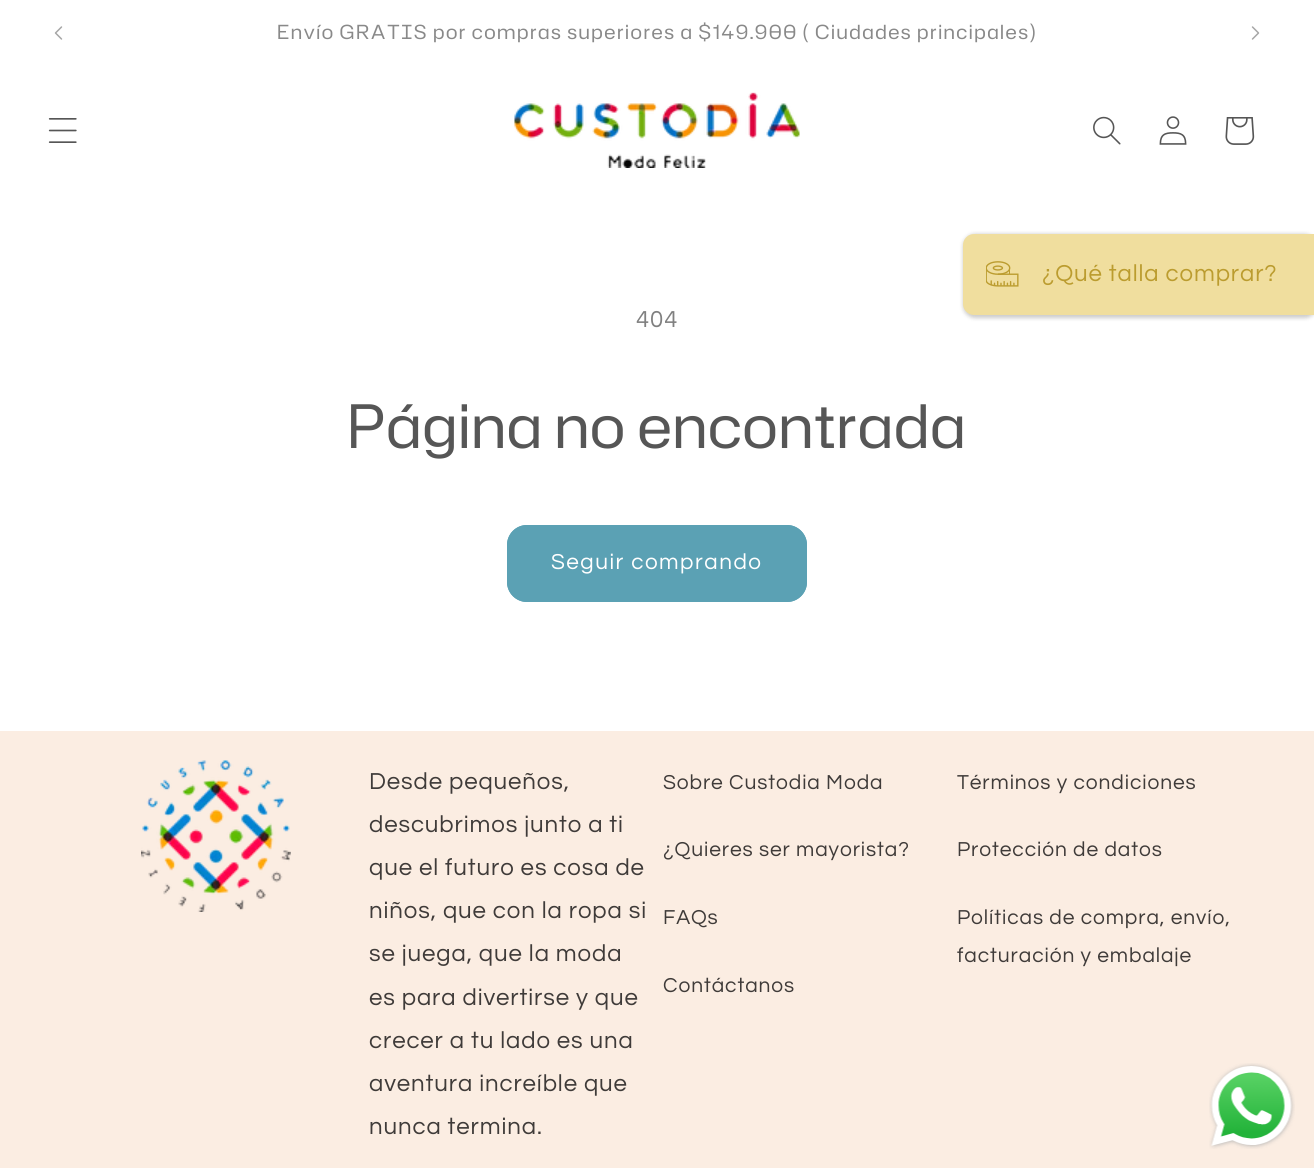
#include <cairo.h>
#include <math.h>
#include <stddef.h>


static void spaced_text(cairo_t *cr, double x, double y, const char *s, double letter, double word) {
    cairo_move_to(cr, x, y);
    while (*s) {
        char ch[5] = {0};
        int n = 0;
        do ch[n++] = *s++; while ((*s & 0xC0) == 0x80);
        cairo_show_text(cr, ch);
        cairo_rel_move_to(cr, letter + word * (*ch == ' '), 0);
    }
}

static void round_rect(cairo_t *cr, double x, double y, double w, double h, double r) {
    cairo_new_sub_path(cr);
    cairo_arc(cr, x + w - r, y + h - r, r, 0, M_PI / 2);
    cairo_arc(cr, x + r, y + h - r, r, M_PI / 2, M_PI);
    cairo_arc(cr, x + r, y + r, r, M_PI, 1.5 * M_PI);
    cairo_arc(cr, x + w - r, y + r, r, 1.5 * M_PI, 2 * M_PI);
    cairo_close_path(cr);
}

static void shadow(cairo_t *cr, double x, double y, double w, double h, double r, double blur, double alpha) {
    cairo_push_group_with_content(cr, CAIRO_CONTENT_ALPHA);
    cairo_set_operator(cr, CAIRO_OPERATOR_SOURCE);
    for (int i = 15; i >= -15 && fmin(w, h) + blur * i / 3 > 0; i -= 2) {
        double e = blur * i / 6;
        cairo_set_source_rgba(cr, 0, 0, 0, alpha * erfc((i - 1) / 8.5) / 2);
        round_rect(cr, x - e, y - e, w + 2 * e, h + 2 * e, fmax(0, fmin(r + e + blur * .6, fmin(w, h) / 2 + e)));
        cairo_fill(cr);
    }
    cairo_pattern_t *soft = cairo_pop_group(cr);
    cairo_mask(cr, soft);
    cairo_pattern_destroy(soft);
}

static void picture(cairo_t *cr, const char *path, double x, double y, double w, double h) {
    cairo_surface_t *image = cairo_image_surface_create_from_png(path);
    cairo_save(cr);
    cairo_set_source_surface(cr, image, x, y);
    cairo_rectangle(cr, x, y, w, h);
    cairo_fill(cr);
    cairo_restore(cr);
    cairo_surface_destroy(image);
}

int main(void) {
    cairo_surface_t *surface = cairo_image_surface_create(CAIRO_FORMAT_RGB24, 1314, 1168);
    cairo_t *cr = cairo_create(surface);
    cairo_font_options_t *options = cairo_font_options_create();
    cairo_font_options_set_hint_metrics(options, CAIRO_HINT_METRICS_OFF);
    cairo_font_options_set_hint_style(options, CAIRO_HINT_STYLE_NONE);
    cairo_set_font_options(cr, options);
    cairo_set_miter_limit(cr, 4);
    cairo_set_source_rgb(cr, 1, 1, 1);
    cairo_paint(cr);
    picture(cr, "img1.png", 54, 26, 9, 14);
    cairo_select_font_face(cr, "Hubot Sans", CAIRO_FONT_SLANT_NORMAL, CAIRO_FONT_WEIGHT_NORMAL);
    cairo_set_font_size(cr, 19.5);
    cairo_set_source_rgb(cr, 0.537, 0.537, 0.537);
    spaced_text(cr, 277, 39, "Envío GRATIS por compras superiores a $149.900 ( Ciudades principales)", 1.5, 0);
    picture(cr, "img2.png", 1251, 26, 9, 14);
    picture(cr, "img3.png", 48, 118, 29, 25);
    picture(cr, "img4.png", 514, 92, 286, 76);
    picture(cr, "img5.png", 1093, 116, 28, 29);
    picture(cr, "img6.png", 1159, 116, 28, 29);
    picture(cr, "img7.png", 1225, 117, 30, 28);
    cairo_set_source_rgb(cr, 0.314, 0.314, 0.314);
    shadow(cr, 963, 234, 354, 84, 12, 2, 0.3);
    cairo_set_source_rgb(cr, 0.941, 0.871, 0.62);
    cairo_new_path(cr);
    cairo_move_to(cr, 974, 234);
    cairo_line_to(cr, 1314, 234);
    cairo_line_to(cr, 1314, 315);
    cairo_line_to(cr, 974, 315);
    cairo_curve_to(cr, 968, 315, 963, 310, 963, 304);
    cairo_line_to(cr, 963, 245);
    cairo_curve_to(cr, 963, 239, 968, 234, 974, 234);
    cairo_close_path(cr);
    cairo_fill(cr);
    picture(cr, "img8.png", 986, 261, 33, 26);
    cairo_select_font_face(cr, "Questrial", CAIRO_FONT_SLANT_NORMAL, CAIRO_FONT_WEIGHT_NORMAL);
    cairo_set_font_size(cr, 24);
    cairo_set_source_rgb(cr, 0.733, 0.612, 0.184);
    spaced_text(cr, 1042, 281, "¿Qué talla comprar?", 0.9, 0);
    cairo_set_source_rgb(cr, 0.502, 0.502, 0.502);
    spaced_text(cr, 636, 327, "404", 0.9, 0);
    cairo_select_font_face(cr, "Hubot Sans", CAIRO_FONT_SLANT_NORMAL, CAIRO_FONT_WEIGHT_NORMAL);
    cairo_set_font_size(cr, 60);
    cairo_set_source_rgb(cr, 0.337, 0.337, 0.337);
    spaced_text(cr, 347, 448, "Página no encontrada", 0.9, 0);
    cairo_set_source_rgb(cr, 0.357, 0.631, 0.706);
    round_rect(cr, 507, 525, 300, 77, 20);
    cairo_fill(cr);
    round_rect(cr, 509.5, 527.5, 295, 72, 17.5);
    cairo_set_line_width(cr, 5);
    cairo_stroke(cr);
    cairo_select_font_face(cr, "Questrial", CAIRO_FONT_SLANT_NORMAL, CAIRO_FONT_WEIGHT_NORMAL);
    cairo_set_font_size(cr, 22.5);
    cairo_set_source_rgb(cr, 1, 1, 1);
    spaced_text(cr, 551, 569, "Seguir comprando", 1.5, 0);
    cairo_set_source_rgb(cr, 0.984, 0.929, 0.886);
    cairo_rectangle(cr, 0, 731, 1314, 437);
    cairo_fill(cr);
    picture(cr, "img9.png", 141, 760, 150, 152);
    cairo_set_font_size(cr, 24);
    cairo_set_source_rgb(cr, 0.247, 0.231, 0.224);
    spaced_text(cr, 369, 789, "Desde pequeños,", 0.9, 0);
    spaced_text(cr, 369, 832, "descubrimos junto a ti", 0.9, 0);
    spaced_text(cr, 369, 875, "que el futuro es cosa de", 0.9, 0);
    spaced_text(cr, 369, 918, "niños, que con la ropa si", 0.9, 0);
    spaced_text(cr, 369, 961, "se juega, que la moda", 0.9, 0);
    spaced_text(cr, 369, 1005, "es para divertirse y que", 0.9, 0);
    spaced_text(cr, 369, 1048, "crecer a tu lado es una", 0.9, 0);
    spaced_text(cr, 369, 1091, "aventura increíble que", 0.9, 0);
    spaced_text(cr, 369, 1134, "nunca termina.", 0.9, 0);
    cairo_set_font_size(cr, 21);
    spaced_text(cr, 663, 789, "Sobre Custodia Moda", 0.9, 0);
    spaced_text(cr, 663, 856, "¿Quieres ser mayorista?", 0.9, 0);
    spaced_text(cr, 663, 924, "FAQs", 0.9, 0);
    spaced_text(cr, 663, 992, "Contáctanos", 0.9, 0);
    spaced_text(cr, 957, 789, "Términos y condiciones", 0.9, 0);
    spaced_text(cr, 957, 856, "Protección de datos", 0.9, 0);
    spaced_text(cr, 957, 924, "Políticas de compra, envío,", 0.9, 0);
    spaced_text(cr, 957, 962, "facturación y embalaje", 0.9, 0);
    picture(cr, "img10.png", 1209, 1063, 86, 86);
    cairo_surface_write_to_png(surface, "page.png");
    cairo_font_options_destroy(options);
    cairo_destroy(cr);
    cairo_surface_destroy(surface);
    return 0;
}
